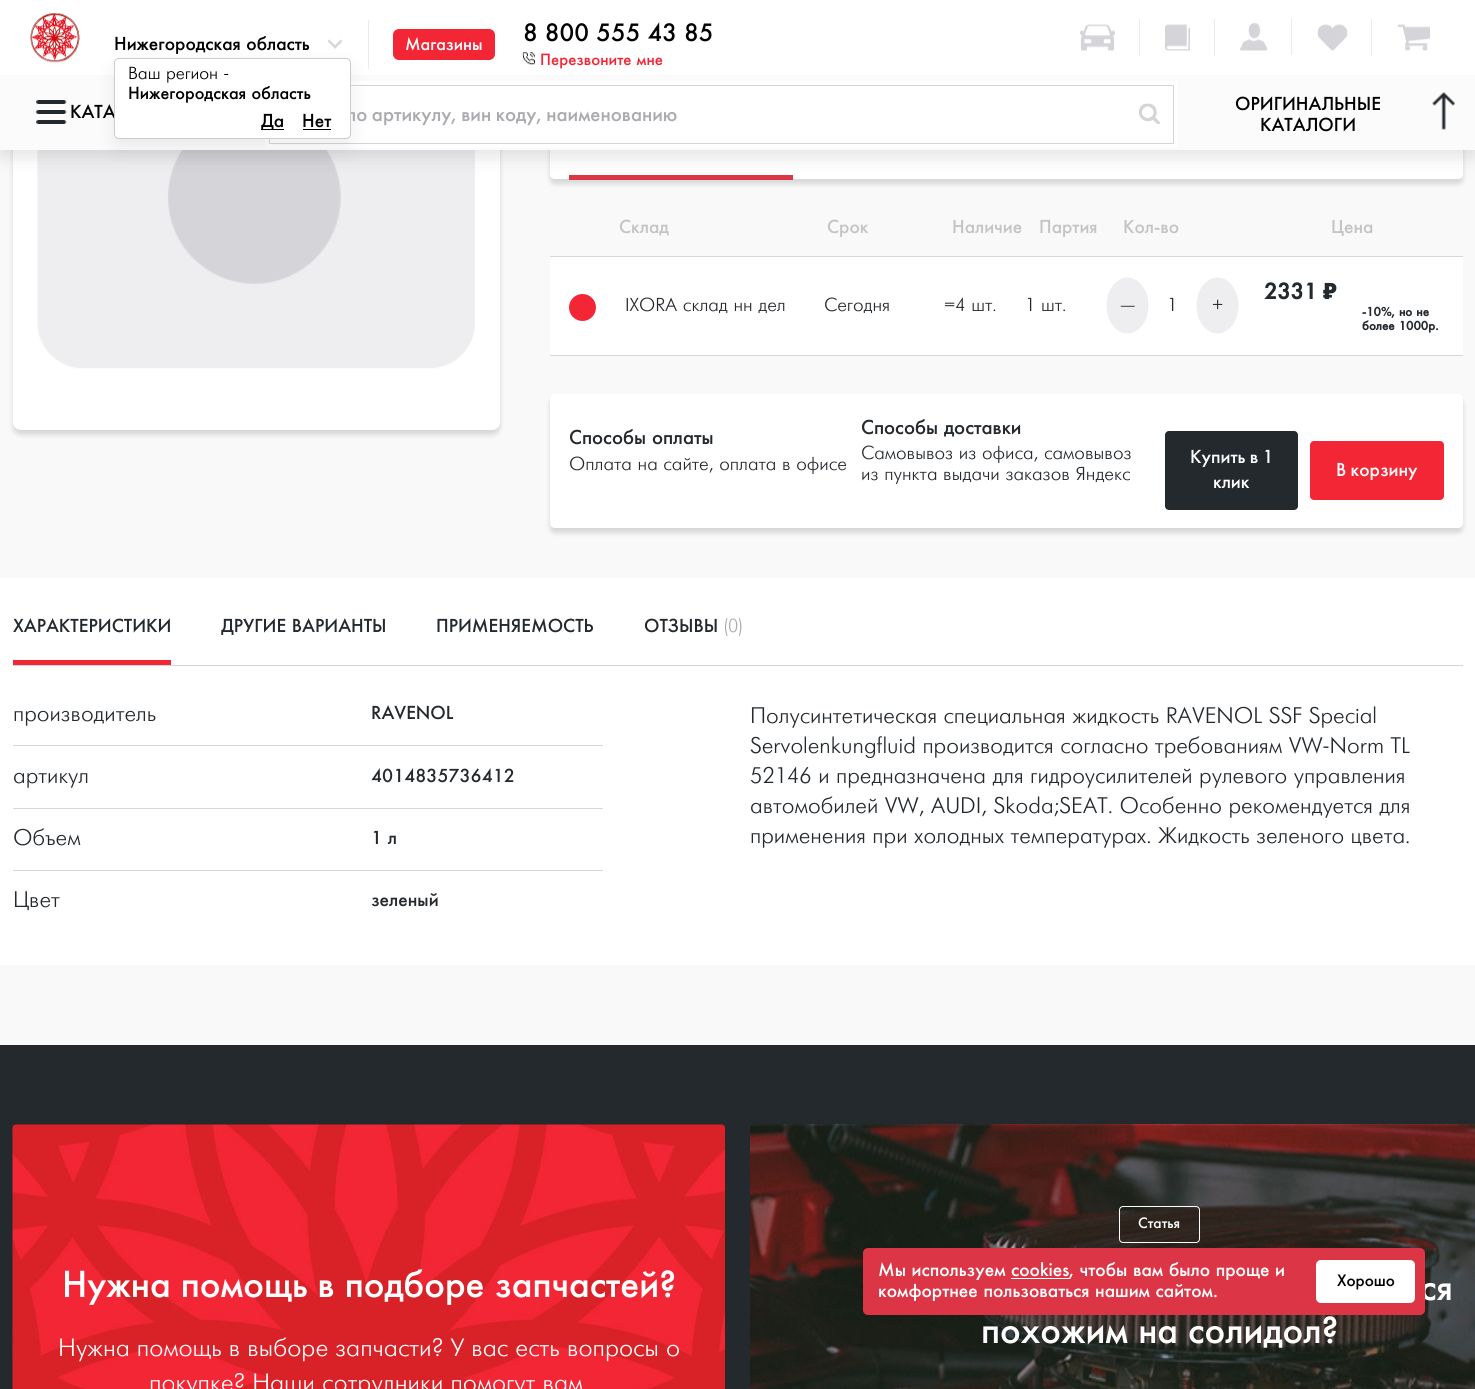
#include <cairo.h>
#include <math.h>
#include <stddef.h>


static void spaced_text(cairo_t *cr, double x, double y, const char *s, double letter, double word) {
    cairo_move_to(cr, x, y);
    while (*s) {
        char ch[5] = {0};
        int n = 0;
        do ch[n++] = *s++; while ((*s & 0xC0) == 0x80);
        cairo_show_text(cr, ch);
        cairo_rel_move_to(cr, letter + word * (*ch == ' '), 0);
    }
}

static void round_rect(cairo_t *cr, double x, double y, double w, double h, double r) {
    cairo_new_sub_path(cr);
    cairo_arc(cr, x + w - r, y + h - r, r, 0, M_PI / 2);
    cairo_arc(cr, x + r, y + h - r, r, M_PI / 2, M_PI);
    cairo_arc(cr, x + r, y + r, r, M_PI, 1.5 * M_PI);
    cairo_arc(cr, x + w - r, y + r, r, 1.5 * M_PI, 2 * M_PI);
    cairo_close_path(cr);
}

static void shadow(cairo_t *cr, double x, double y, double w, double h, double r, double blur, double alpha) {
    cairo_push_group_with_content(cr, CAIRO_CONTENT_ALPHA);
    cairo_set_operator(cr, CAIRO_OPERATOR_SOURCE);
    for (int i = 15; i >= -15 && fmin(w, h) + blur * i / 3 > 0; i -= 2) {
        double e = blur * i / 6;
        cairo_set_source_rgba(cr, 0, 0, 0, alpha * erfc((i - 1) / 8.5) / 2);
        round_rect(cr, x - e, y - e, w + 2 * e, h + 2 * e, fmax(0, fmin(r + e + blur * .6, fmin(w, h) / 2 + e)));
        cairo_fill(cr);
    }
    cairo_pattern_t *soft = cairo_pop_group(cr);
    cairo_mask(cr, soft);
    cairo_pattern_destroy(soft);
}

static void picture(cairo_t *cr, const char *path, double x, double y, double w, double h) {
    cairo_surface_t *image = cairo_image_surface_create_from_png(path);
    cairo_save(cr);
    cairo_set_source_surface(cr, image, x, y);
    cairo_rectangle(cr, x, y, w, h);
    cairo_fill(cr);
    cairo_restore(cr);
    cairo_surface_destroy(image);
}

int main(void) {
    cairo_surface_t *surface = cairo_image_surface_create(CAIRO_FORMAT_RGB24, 1475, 1389);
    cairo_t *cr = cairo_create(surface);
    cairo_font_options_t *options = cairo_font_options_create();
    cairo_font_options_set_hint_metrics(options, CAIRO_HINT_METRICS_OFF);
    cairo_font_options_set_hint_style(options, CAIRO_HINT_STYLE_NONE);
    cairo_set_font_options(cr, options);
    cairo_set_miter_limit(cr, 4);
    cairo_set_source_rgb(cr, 0.973, 0.973, 0.973);
    cairo_paint(cr);
    cairo_set_source_rgb(cr, 0, 0, 0);
    shadow(cr, 13, -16, 487, 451, 8, 2.5, 0.14);
    cairo_set_source_rgb(cr, 1, 1, 1);
    round_rect(cr, 13, -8, 487, 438, 8);
    cairo_fill(cr);
    picture(cr, "img12.png", 37, 150, 438, 219);
    cairo_set_source_rgb(cr, 0, 0, 0);
    shadow(cr, 550, 123, 913, 61, 5, 2.5, 0.14);
    cairo_set_source_rgb(cr, 1, 1, 1);
    round_rect(cr, 550, 118, 913, 61, 5);
    cairo_fill(cr);
    cairo_set_source_rgb(cr, 0.863, 0.208, 0.271);
    cairo_rectangle(cr, 569, 175, 224, 5);
    cairo_fill(cr);
    cairo_set_source_rgb(cr, 0, 0, 0);
    shadow(cr, 0, 6, 1475, 150, 0, 10, 0.12);
    cairo_set_source_rgb(cr, 1, 1, 1);
    cairo_rectangle(cr, 0, 0, 1475, 75);
    cairo_fill(cr);
    picture(cr, "img1.png", 30, 13, 50, 50);
    cairo_select_font_face(cr, "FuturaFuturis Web", CAIRO_FONT_SLANT_NORMAL, CAIRO_FONT_WEIGHT_NORMAL);
    cairo_set_font_size(cr, 18.75);
    cairo_set_source_rgb(cr, 0, 0, 0);
    spaced_text(cr, 114, 50, "Нижегородская область", 0, 1.25);
    picture(cr, "img2.png", 328, 39, 14, 10);
    cairo_set_source_rgb(cr, 0.918, 0.918, 0.925);
    cairo_rectangle(cr, 368, 20, 1, 49);
    cairo_fill(cr);
    cairo_set_source_rgb(cr, 0.953, 0.149, 0.208);
    round_rect(cr, 393, 29, 102, 31, 6);
    cairo_fill(cr);
    cairo_set_font_size(cr, 17.5);
    cairo_set_source_rgb(cr, 1, 1, 1);
    cairo_move_to(cr, 405, 50);
    cairo_show_text(cr, "Магазины");
    cairo_set_font_size(cr, 25);
    cairo_set_source_rgb(cr, 0, 0, 0);
    spaced_text(cr, 523, 41, "8 800 555 43 85", 0, 1.25);
    picture(cr, "img3.png", 522, 52, 13, 13);
    cairo_set_font_size(cr, 16.25);
    cairo_set_source_rgb(cr, 0.953, 0.149, 0.208);
    spaced_text(cr, 540, 65, "Перезвоните мне", 0, 1.25);
    cairo_set_source_rgb(cr, 0.984, 0.984, 0.988);
    cairo_rectangle(cr, 0, 75, 1475, 75);
    cairo_fill(cr);
    cairo_set_source_rgb(cr, 1, 1, 1);
    cairo_rectangle(cr, 265, 81, 913, 67);
    cairo_fill(cr);
    round_rect(cr, 269.5, 85.5, 904, 58, 0.5);
    cairo_set_source_rgb(cr, 0.831, 0.831, 0.851);
    cairo_set_line_width(cr, 1);
    cairo_stroke(cr);
    cairo_set_source_rgb(cr, 0, 0, 0);
    shadow(cr, 114, 66, 237, 82, 5, 11, 0.07);
    cairo_set_font_size(cr, 18.75);
    cairo_set_source_rgb(cr, 0, 0, 0);
    spaced_text(cr, 70, 118, "КАТА", 0, 1.25);
    cairo_set_font_size(cr, 20);
    cairo_set_source_rgb(cr, 0.671, 0.671, 0.686);
    cairo_move_to(cr, 346, 121);
    cairo_show_text(cr, "по артикулу, вин коду, наименованию");
    cairo_set_source_rgb(cr, 1, 1, 1);
    round_rect(cr, 114.5, 58.5, 236, 80, 4.5);
    cairo_fill_preserve(cr);
    cairo_set_source_rgb(cr, 0.8, 0.8, 0.8);
    cairo_stroke(cr);
    cairo_select_font_face(cr, "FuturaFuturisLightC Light", CAIRO_FONT_SLANT_NORMAL, CAIRO_FONT_WEIGHT_NORMAL);
    cairo_set_font_size(cr, 17.5);
    cairo_set_source_rgb(cr, 0, 0, 0);
    spaced_text(cr, 128, 79, "Ваш регион -", 0, 1.25);
    cairo_select_font_face(cr, "FuturaFuturis Web", CAIRO_FONT_SLANT_NORMAL, CAIRO_FONT_WEIGHT_NORMAL);
    spaced_text(cr, 128, 99, "Нижегородская область", 0, 1.25);
    cairo_rectangle(cr, 261, 129, 23, 1);
    cairo_fill(cr);
    cairo_set_font_size(cr, 18.75);
    cairo_move_to(cr, 261, 127);
    cairo_show_text(cr, "Да");
    cairo_move_to(cr, 302, 127);
    cairo_show_text(cr, "Нет");
    cairo_rectangle(cr, 303, 129, 28, 1);
    cairo_fill(cr);
    picture(cr, "img4.png", 1080, 24, 35, 27);
    cairo_set_source_rgb(cr, 0.918, 0.918, 0.925);
    cairo_rectangle(cr, 1139, 19, 1, 37);
    cairo_fill(cr);
    picture(cr, "img5.png", 1165, 24, 25, 27);
    cairo_rectangle(cr, 1214, 19, 1, 37);
    cairo_fill(cr);
    picture(cr, "img6.png", 1240, 23, 28, 28);
    cairo_rectangle(cr, 1291, 18, 1, 37);
    cairo_fill(cr);
    picture(cr, "img7.png", 1317, 24, 31, 27);
    cairo_rectangle(cr, 1371, 19, 1, 37);
    cairo_fill(cr);
    picture(cr, "img8.png", 1397, 24, 33, 27);
    picture(cr, "img9.png", 36, 100, 31, 24);
    picture(cr, "img10.png", 1139, 103, 21, 21);
    cairo_set_source_rgb(cr, 0, 0, 0);
    cairo_move_to(cr, 1235, 110);
    cairo_show_text(cr, "ОРИГИНАЛЬНЫЕ");
    cairo_move_to(cr, 1260, 131);
    cairo_show_text(cr, "КАТАЛОГИ");
    picture(cr, "img11.png", 1432, 92, 23, 38);
    cairo_set_source_rgb(cr, 0.769, 0.769, 0.769);
    cairo_move_to(cr, 619, 233);
    cairo_show_text(cr, "Склад");
    cairo_move_to(cr, 827, 233);
    cairo_show_text(cr, "Срок");
    cairo_move_to(cr, 952, 233);
    cairo_show_text(cr, "Наличие");
    cairo_move_to(cr, 1039, 233);
    cairo_show_text(cr, "Партия");
    cairo_move_to(cr, 1123, 233);
    cairo_show_text(cr, "Кол-во");
    cairo_move_to(cr, 1331, 233);
    cairo_show_text(cr, "Цена");
    cairo_set_source_rgb(cr, 1, 1, 1);
    cairo_rectangle(cr, 550, 257, 913, 98);
    cairo_fill(cr);
    cairo_set_source_rgb(cr, 0.843, 0.839, 0.859);
    cairo_rectangle(cr, 550, 256, 913, 1);
    cairo_fill(cr);
    cairo_rectangle(cr, 550, 355, 913, 1);
    cairo_fill(cr);
    cairo_set_source_rgb(cr, 0.953, 0.149, 0.208);
    cairo_arc(cr, 582.5, 307.5, 13.5, 0, 2 * M_PI);
    cairo_fill(cr);
    cairo_select_font_face(cr, "FuturaFuturisLightC Light", CAIRO_FONT_SLANT_NORMAL, CAIRO_FONT_WEIGHT_NORMAL);
    cairo_set_source_rgb(cr, 0.141, 0.161, 0.18);
    spaced_text(cr, 625, 311, "IXORA склад нн дел", 0, 1.25);
    cairo_move_to(cr, 824, 311);
    cairo_show_text(cr, "Сегодня");
    spaced_text(cr, 944, 311, "=4 шт.", 0, 1.25);
    spaced_text(cr, 1025, 311, "1 шт.", 0, 1.25);
    cairo_set_source_rgb(cr, 0.933, 0.933, 0.941);
    cairo_new_path(cr);
    cairo_move_to(cr, 1127.5, 277.5);
    cairo_curve_to(cr, 1139, 277.5, 1148.5, 290, 1148.5, 305.5);
    cairo_curve_to(cr, 1148.5, 321, 1139, 333.5, 1127.5, 333.5);
    cairo_curve_to(cr, 1116, 333.5, 1106.5, 321, 1106.5, 305.5);
    cairo_curve_to(cr, 1106.5, 290, 1116, 277.5, 1127.5, 277.5);
    cairo_close_path(cr);
    cairo_fill(cr);
    cairo_set_source_rgb(cr, 0.141, 0.161, 0.18);
    cairo_move_to(cr, 1120, 311);
    cairo_show_text(cr, "—");
    cairo_move_to(cr, 1167, 311);
    cairo_show_text(cr, "1");
    cairo_set_source_rgb(cr, 0.933, 0.933, 0.941);
    cairo_new_path(cr);
    cairo_move_to(cr, 1217.5, 277.5);
    cairo_curve_to(cr, 1229, 277.5, 1238.5, 290, 1238.5, 305.5);
    cairo_curve_to(cr, 1238.5, 321, 1229, 333.5, 1217.5, 333.5);
    cairo_curve_to(cr, 1206, 333.5, 1196.5, 321, 1196.5, 305.5);
    cairo_curve_to(cr, 1196.5, 290, 1206, 277.5, 1217.5, 277.5);
    cairo_close_path(cr);
    cairo_fill(cr);
    cairo_set_source_rgb(cr, 0.141, 0.161, 0.18);
    cairo_move_to(cr, 1212, 311);
    cairo_show_text(cr, "+");
    cairo_select_font_face(cr, "FuturaFuturis Web", CAIRO_FONT_SLANT_NORMAL, CAIRO_FONT_WEIGHT_BOLD);
    cairo_set_font_size(cr, 22.5);
    cairo_move_to(cr, 1264, 299);
    cairo_show_text(cr, "2331");
    cairo_select_font_face(cr, "Noto Sans Black", CAIRO_FONT_SLANT_NORMAL, CAIRO_FONT_WEIGHT_NORMAL);
    cairo_move_to(cr, 1323, 299);
    cairo_show_text(cr, "₽");
    cairo_select_font_face(cr, "FuturaFuturis Web", CAIRO_FONT_SLANT_NORMAL, CAIRO_FONT_WEIGHT_BOLD);
    cairo_set_font_size(cr, 12.5);
    spaced_text(cr, 1362, 316, "-10%, но не", 0, 1.25);
    spaced_text(cr, 1362, 330, "более 1000р.", 0, 1.25);
    cairo_set_source_rgb(cr, 0, 0, 0);
    shadow(cr, 550, 399, 913, 134, 5, 2.5, 0.14);
    cairo_set_source_rgb(cr, 1, 1, 1);
    round_rect(cr, 550, 394, 913, 134, 5);
    cairo_fill(cr);
    cairo_select_font_face(cr, "FuturaFuturis Web", CAIRO_FONT_SLANT_NORMAL, CAIRO_FONT_WEIGHT_NORMAL);
    cairo_set_font_size(cr, 20);
    cairo_set_source_rgb(cr, 0.141, 0.161, 0.18);
    spaced_text(cr, 569, 444, "Способы оплаты", 0, 1.25);
    cairo_select_font_face(cr, "FuturaFuturisLightC Light", CAIRO_FONT_SLANT_NORMAL, CAIRO_FONT_WEIGHT_NORMAL);
    cairo_set_font_size(cr, 18.75);
    spaced_text(cr, 569, 470, "Оплата на сайте, оплата в офисе", 0, 1.25);
    cairo_select_font_face(cr, "FuturaFuturis Web", CAIRO_FONT_SLANT_NORMAL, CAIRO_FONT_WEIGHT_NORMAL);
    cairo_set_font_size(cr, 20);
    spaced_text(cr, 861, 434, "Способы доставки", 0, 1.25);
    cairo_select_font_face(cr, "FuturaFuturisLightC Light", CAIRO_FONT_SLANT_NORMAL, CAIRO_FONT_WEIGHT_NORMAL);
    cairo_set_font_size(cr, 18.75);
    spaced_text(cr, 861, 459, "Самовывоз из офиса, самовывоз", 0, 1.25);
    spaced_text(cr, 861, 480, "из пункта выдачи заказов Яндекс", 0, 1.25);
    round_rect(cr, 1165, 431, 133, 79, 4);
    cairo_fill(cr);
    cairo_select_font_face(cr, "FuturaFuturis Web", CAIRO_FONT_SLANT_NORMAL, CAIRO_FONT_WEIGHT_NORMAL);
    cairo_set_source_rgb(cr, 1, 1, 1);
    cairo_move_to(cr, 1190, 463);
    cairo_show_text(cr, "Купить в 1");
    cairo_move_to(cr, 1213, 488);
    cairo_show_text(cr, "клик");
    cairo_set_source_rgb(cr, 0.953, 0.149, 0.208);
    round_rect(cr, 1310, 441, 134, 59, 4);
    cairo_fill(cr);
    cairo_set_source_rgb(cr, 1, 1, 1);
    cairo_move_to(cr, 1336, 476);
    cairo_show_text(cr, "В корзину");
    cairo_rectangle(cr, 0, 578, 1475, 387);
    cairo_fill(cr);
    cairo_set_source_rgb(cr, 0.831, 0.831, 0.851);
    cairo_rectangle(cr, 13, 665, 1450, 1);
    cairo_fill(cr);
    cairo_set_source_rgb(cr, 0.141, 0.161, 0.18);
    cairo_move_to(cr, 13, 632);
    cairo_show_text(cr, "ХАРАКТЕРИСТИКИ");
    cairo_set_source_rgb(cr, 0.953, 0.149, 0.208);
    cairo_rectangle(cr, 13, 660, 158, 5);
    cairo_fill(cr);
    cairo_set_source_rgb(cr, 0.141, 0.161, 0.18);
    spaced_text(cr, 221, 632, "ДРУГИЕ ВАРИАНТЫ", 0, 1.25);
    cairo_move_to(cr, 436, 632);
    cairo_show_text(cr, "ПРИМЕНЯЕМОСТЬ");
    cairo_move_to(cr, 644, 632);
    cairo_show_text(cr, "ОТЗЫВЫ");
    cairo_select_font_face(cr, "FuturaFuturisLightC Light", CAIRO_FONT_SLANT_NORMAL, CAIRO_FONT_WEIGHT_NORMAL);
    cairo_set_source_rgb(cr, 0.671, 0.671, 0.686);
    cairo_move_to(cr, 724, 632);
    cairo_show_text(cr, "(0)");
    cairo_set_font_size(cr, 22.5);
    cairo_set_source_rgb(cr, 0.141, 0.161, 0.18);
    cairo_move_to(cr, 13, 721);
    cairo_show_text(cr, "производитель");
    cairo_select_font_face(cr, "FuturaFuturis Web", CAIRO_FONT_SLANT_NORMAL, CAIRO_FONT_WEIGHT_NORMAL);
    cairo_set_font_size(cr, 18.75);
    cairo_move_to(cr, 371, 719);
    cairo_show_text(cr, "RAVENOL");
    cairo_set_source_rgb(cr, 0.843, 0.839, 0.859);
    cairo_rectangle(cr, 13, 745, 590, 1);
    cairo_fill(cr);
    cairo_select_font_face(cr, "FuturaFuturisLightC Light", CAIRO_FONT_SLANT_NORMAL, CAIRO_FONT_WEIGHT_NORMAL);
    cairo_set_font_size(cr, 22.5);
    cairo_set_source_rgb(cr, 0.141, 0.161, 0.18);
    cairo_move_to(cr, 13, 783);
    cairo_show_text(cr, "артикул");
    cairo_select_font_face(cr, "FuturaFuturis Web", CAIRO_FONT_SLANT_NORMAL, CAIRO_FONT_WEIGHT_NORMAL);
    cairo_set_font_size(cr, 18.75);
    cairo_move_to(cr, 371, 782);
    cairo_show_text(cr, "4014835736412");
    cairo_set_source_rgb(cr, 0.843, 0.839, 0.859);
    cairo_rectangle(cr, 13, 808, 590, 1);
    cairo_fill(cr);
    cairo_select_font_face(cr, "FuturaFuturisLightC Light", CAIRO_FONT_SLANT_NORMAL, CAIRO_FONT_WEIGHT_NORMAL);
    cairo_set_font_size(cr, 22.5);
    cairo_set_source_rgb(cr, 0.141, 0.161, 0.18);
    cairo_move_to(cr, 13, 845);
    cairo_show_text(cr, "Объем");
    cairo_select_font_face(cr, "FuturaFuturis Web", CAIRO_FONT_SLANT_NORMAL, CAIRO_FONT_WEIGHT_NORMAL);
    cairo_set_font_size(cr, 18.75);
    spaced_text(cr, 371, 844, "1 л", 0, 1.25);
    cairo_set_source_rgb(cr, 0.843, 0.839, 0.859);
    cairo_rectangle(cr, 13, 870, 590, 1);
    cairo_fill(cr);
    cairo_select_font_face(cr, "FuturaFuturisLightC Light", CAIRO_FONT_SLANT_NORMAL, CAIRO_FONT_WEIGHT_NORMAL);
    cairo_set_font_size(cr, 22.5);
    cairo_set_source_rgb(cr, 0.141, 0.161, 0.18);
    cairo_move_to(cr, 13, 907);
    cairo_show_text(cr, "Цвет");
    cairo_select_font_face(cr, "FuturaFuturis Web", CAIRO_FONT_SLANT_NORMAL, CAIRO_FONT_WEIGHT_NORMAL);
    cairo_set_font_size(cr, 18.75);
    cairo_move_to(cr, 371, 906);
    cairo_show_text(cr, "зеленый");
    cairo_select_font_face(cr, "FuturaFuturisLightC Light", CAIRO_FONT_SLANT_NORMAL, CAIRO_FONT_WEIGHT_NORMAL);
    cairo_set_font_size(cr, 22.5);
    spaced_text(cr, 750, 723, "Полусинтетическая специальная жидкость RAVENOL SSF Special", 0, 1.25);
    spaced_text(cr, 750, 753, "Servolenkungfluid производится согласно требованиям VW-Norm TL", 0, 1.25);
    spaced_text(cr, 750, 783, "52146 и предназначена для гидроусилителей рулевого управления", 0, 1.25);
    spaced_text(cr, 750, 813, "автомобилей VW, AUDI, Skoda;SEAT. Особенно рекомендуется для", 0, 1.25);
    spaced_text(cr, 750, 843, "применения при холодных температурах. Жидкость зеленого цвета.", 0, 1.25);
    cairo_rectangle(cr, 0, 1045, 1475, 344);
    cairo_fill(cr);
    picture(cr, "img13.png", 12, 1124, 714, 265);
    cairo_select_font_face(cr, "FuturaFuturis Web", CAIRO_FONT_SLANT_NORMAL, CAIRO_FONT_WEIGHT_NORMAL);
    cairo_set_font_size(cr, 37.5);
    cairo_set_source_rgb(cr, 1, 1, 1);
    spaced_text(cr, 62, 1297, "Нужна помощь в подборе запчастей?", 0, 1.25);
    cairo_select_font_face(cr, "FuturaFuturisLightC Light", CAIRO_FONT_SLANT_NORMAL, CAIRO_FONT_WEIGHT_NORMAL);
    cairo_set_font_size(cr, 25);
    spaced_text(cr, 58, 1356, "Нужна помощь в выборе запчасти? У вас есть вопросы о", 0, 1.25);
    spaced_text(cr, 149, 1391, "покупке? Наши сотрудники помогут вам", 0, 1.25);
    picture(cr, "img14.png", 750, 1124, 725, 265);
    round_rect(cr, 1119.5, 1206.5, 80, 36, 3.5);
    cairo_stroke(cr);
    cairo_select_font_face(cr, "FuturaFuturis Web", CAIRO_FONT_SLANT_NORMAL, CAIRO_FONT_WEIGHT_NORMAL);
    cairo_set_font_size(cr, 15);
    cairo_move_to(cr, 1138, 1228);
    cairo_show_text(cr, "Статья");
    cairo_set_font_size(cr, 37.5);
    spaced_text(cr, 1420, 1300, "ся", 0, 1.25);
    spaced_text(cr, 981, 1343, "похожим на солидол?", 0, 1.25);
    cairo_set_source_rgb(cr, 0.863, 0.208, 0.271);
    round_rect(cr, 863, 1248, 562, 67, 5);
    cairo_fill(cr);
    cairo_set_font_size(cr, 18.75);
    cairo_set_source_rgb(cr, 1, 1, 1);
    spaced_text(cr, 878, 1276, "Мы используем", 0, 1.25);
    cairo_move_to(cr, 1011, 1276);
    cairo_show_text(cr, "cookies");
    cairo_rectangle(cr, 1011, 1278, 58, 1);
    cairo_fill(cr);
    spaced_text(cr, 1069, 1276, ", чтобы вам было проще и", 0, 1.25);
    spaced_text(cr, 878, 1297, "комфортнее пользоваться нашим сайтом.", 0, 1.25);
    round_rect(cr, 1316, 1260, 99, 43, 5);
    cairo_fill(cr);
    cairo_set_font_size(cr, 16.5);
    cairo_set_source_rgb(cr, 0, 0, 0);
    cairo_move_to(cr, 1337, 1286);
    cairo_show_text(cr, "Хорошо");
    cairo_surface_write_to_png(surface, "page.png");
    cairo_font_options_destroy(options);
    cairo_destroy(cr);
    cairo_surface_destroy(surface);
    return 0;
}
